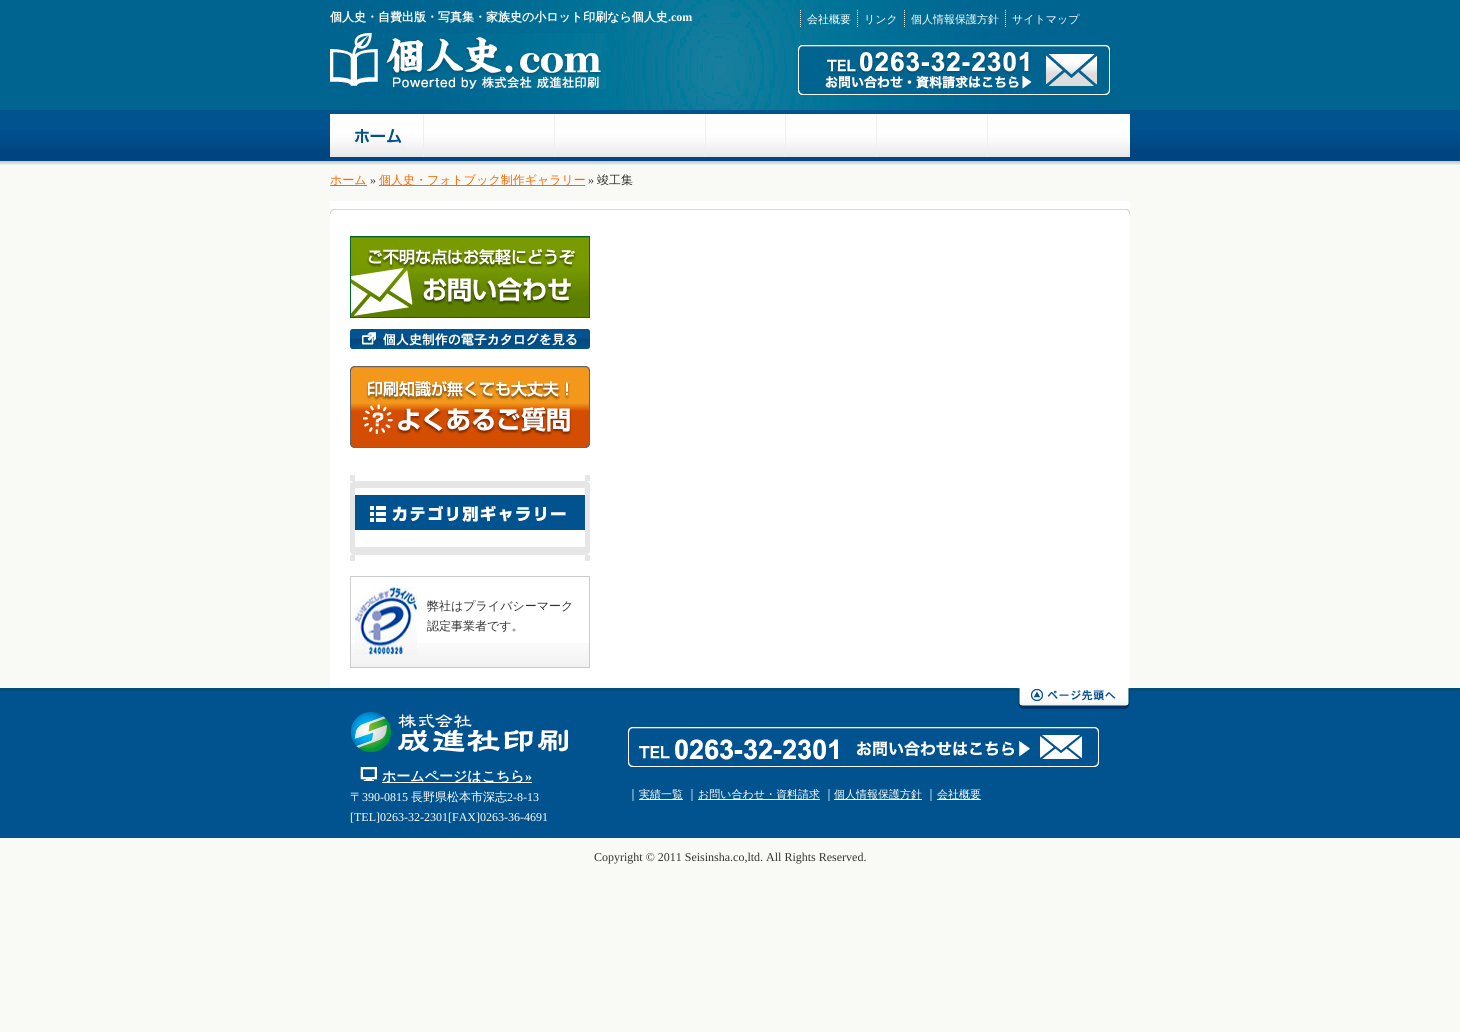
#include <cairo.h>
#include <math.h>
#include <stddef.h>


static void picture(cairo_t *cr, const char *path, double x, double y, double w, double h) {
    cairo_surface_t *image = cairo_image_surface_create_from_png(path);
    cairo_save(cr);
    cairo_set_source_surface(cr, image, x, y);
    cairo_rectangle(cr, x, y, w, h);
    cairo_fill(cr);
    cairo_restore(cr);
    cairo_surface_destroy(image);
}

int main(void) {
    cairo_surface_t *surface = cairo_image_surface_create(CAIRO_FORMAT_RGB24, 1460, 1032);
    cairo_t *cr = cairo_create(surface);
    cairo_font_options_t *options = cairo_font_options_create();
    cairo_font_options_set_hint_metrics(options, CAIRO_HINT_METRICS_OFF);
    cairo_font_options_set_hint_style(options, CAIRO_HINT_STYLE_NONE);
    cairo_set_font_options(cr, options);
    cairo_set_miter_limit(cr, 4);
    cairo_set_source_rgb(cr, 0.973, 0.973, 0.961);
    cairo_paint(cr);
    picture(cr, "img1.png", 0, 0, 1460, 165);
    picture(cr, "img2.png", 330, 0, 800, 110);
    cairo_select_font_face(cr, "WenQuanYi Zen Hei", CAIRO_FONT_SLANT_NORMAL, CAIRO_FONT_WEIGHT_BOLD);
    cairo_set_font_size(cr, 12);
    cairo_set_source_rgb(cr, 1, 1, 1);
    cairo_move_to(cr, 330, 21);
    cairo_show_text(cr, "個人史・自費出版・写真集・家族史の小ロット印刷なら個人史");
    cairo_select_font_face(cr, "Liberation Serif", CAIRO_FONT_SLANT_NORMAL, CAIRO_FONT_WEIGHT_BOLD);
    cairo_move_to(cr, 668, 21);
    cairo_show_text(cr, ".com");
    cairo_new_path(cr);
    cairo_move_to(cr, 800.5, 10);
    cairo_line_to(cr, 800.5, 28);
    cairo_set_line_width(cr, 1);
    cairo_set_dash(cr, (double[]){1, 1}, 2, 0);
    cairo_stroke(cr);
    cairo_select_font_face(cr, "WenQuanYi Zen Hei Medium", CAIRO_FONT_SLANT_NORMAL, CAIRO_FONT_WEIGHT_NORMAL);
    cairo_set_font_size(cr, 11);
    cairo_move_to(cr, 807, 23);
    cairo_show_text(cr, "会社概要");
    cairo_new_path(cr);
    cairo_move_to(cr, 857.5, 10);
    cairo_line_to(cr, 857.5, 28);
    cairo_stroke(cr);
    cairo_move_to(cr, 864, 23);
    cairo_show_text(cr, "リンク");
    cairo_new_path(cr);
    cairo_move_to(cr, 904.5, 10);
    cairo_line_to(cr, 904.5, 28);
    cairo_stroke(cr);
    cairo_move_to(cr, 911, 23);
    cairo_show_text(cr, "個人情報保護方針");
    cairo_new_path(cr);
    cairo_move_to(cr, 1005.5, 10);
    cairo_line_to(cr, 1005.5, 28);
    cairo_stroke(cr);
    cairo_move_to(cr, 1012, 23);
    cairo_show_text(cr, "サイトマップ");
    picture(cr, "img3.png", 330, 33, 276, 56);
    picture(cr, "img4.png", 798, 45, 312, 50);
    picture(cr, "img5.png", 330, 110, 800, 50);
    picture(cr, "img6.png", 353, 127, 53, 23);
    cairo_set_source_rgb(cr, 1, 0.4, 0);
    cairo_rectangle(cr, 330, 185, 37, 1);
    cairo_fill(cr);
    cairo_set_font_size(cr, 12);
    cairo_move_to(cr, 330, 184);
    cairo_show_text(cr, "ホーム");
    cairo_select_font_face(cr, "Liberation Serif", CAIRO_FONT_SLANT_NORMAL, CAIRO_FONT_WEIGHT_NORMAL);
    cairo_set_source_rgb(cr, 0.2, 0.2, 0.2);
    cairo_move_to(cr, 370, 184);
    cairo_show_text(cr, "»");
    cairo_set_source_rgb(cr, 1, 0.4, 0);
    cairo_rectangle(cr, 379, 185, 206, 1);
    cairo_fill(cr);
    cairo_select_font_face(cr, "WenQuanYi Zen Hei Medium", CAIRO_FONT_SLANT_NORMAL, CAIRO_FONT_WEIGHT_NORMAL);
    cairo_move_to(cr, 379, 184);
    cairo_show_text(cr, "個人史・フォトブック制作ギャラリー");
    cairo_select_font_face(cr, "Liberation Serif", CAIRO_FONT_SLANT_NORMAL, CAIRO_FONT_WEIGHT_NORMAL);
    cairo_set_source_rgb(cr, 0.2, 0.2, 0.2);
    cairo_move_to(cr, 588, 184);
    cairo_show_text(cr, "»");
    cairo_select_font_face(cr, "WenQuanYi Zen Hei Medium", CAIRO_FONT_SLANT_NORMAL, CAIRO_FONT_WEIGHT_NORMAL);
    cairo_move_to(cr, 597, 184);
    cairo_show_text(cr, "竣工集");
    cairo_set_source_rgb(cr, 1, 1, 1);
    cairo_rectangle(cr, 330, 201, 800, 487);
    cairo_fill(cr);
    picture(cr, "img7.png", 330, 209, 800, 5);
    picture(cr, "img8.png", 350, 236, 240, 82);
    picture(cr, "img9.png", 350, 329, 240, 20);
    picture(cr, "img10.png", 350, 366, 240, 82);
    picture(cr, "img11.png", 350, 475, 240, 86);
    picture(cr, "img12.png", 350, 481, 240, 7);
    picture(cr, "img13.png", 355, 495, 230, 35);
    picture(cr, "img14.png", 350, 547, 240, 8);
    picture(cr, "img15.png", 351, 643, 238, 24);
    cairo_rectangle(cr, 350.5, 576.5, 239, 91);
    cairo_set_source_rgb(cr, 0.8, 0.8, 0.8);
    cairo_set_dash(cr, NULL, 0, 0);
    cairo_stroke(cr);
    picture(cr, "img16.png", 355, 587, 62, 68);
    cairo_set_source_rgb(cr, 0.2, 0.2, 0.2);
    cairo_move_to(cr, 427, 610);
    cairo_show_text(cr, "弊社はプライバシーマーク");
    cairo_move_to(cr, 427, 630);
    cairo_show_text(cr, "認定事業者です。");
    cairo_set_source_rgb(cr, 0, 0.325, 0.561);
    cairo_rectangle(cr, 0, 691, 1460, 147);
    cairo_fill(cr);
    cairo_set_source_rgb(cr, 0, 0.306, 0.475);
    cairo_rectangle(cr, 0, 688, 1460, 3);
    cairo_fill(cr);
    picture(cr, "img17.png", 1018, 688, 112, 21);
    picture(cr, "img18.png", 350, 712, 218, 41);
    picture(cr, "img19.png", 360, 767, 17, 14);
    cairo_set_source_rgb(cr, 1, 1, 1);
    cairo_rectangle(cr, 382, 782, 150, 1);
    cairo_fill(cr);
    cairo_select_font_face(cr, "WenQuanYi Zen Hei", CAIRO_FONT_SLANT_NORMAL, CAIRO_FONT_WEIGHT_BOLD);
    cairo_set_font_size(cr, 14);
    cairo_move_to(cr, 382, 781);
    cairo_show_text(cr, "ホームページはこちら");
    cairo_select_font_face(cr, "Liberation Serif", CAIRO_FONT_SLANT_NORMAL, CAIRO_FONT_WEIGHT_BOLD);
    cairo_move_to(cr, 525, 781);
    cairo_show_text(cr, "»");
    cairo_select_font_face(cr, "WenQuanYi Zen Hei Medium", CAIRO_FONT_SLANT_NORMAL, CAIRO_FONT_WEIGHT_NORMAL);
    cairo_set_font_size(cr, 12);
    cairo_move_to(cr, 350, 801);
    cairo_show_text(cr, "〒");
    cairo_select_font_face(cr, "Liberation Serif", CAIRO_FONT_SLANT_NORMAL, CAIRO_FONT_WEIGHT_NORMAL);
    cairo_move_to(cr, 362, 801);
    cairo_show_text(cr, "390-0815");
    cairo_select_font_face(cr, "WenQuanYi Zen Hei Medium", CAIRO_FONT_SLANT_NORMAL, CAIRO_FONT_WEIGHT_NORMAL);
    cairo_move_to(cr, 411, 801);
    cairo_show_text(cr, "長野県松本市深志");
    cairo_select_font_face(cr, "Liberation Serif", CAIRO_FONT_SLANT_NORMAL, CAIRO_FONT_WEIGHT_NORMAL);
    cairo_move_to(cr, 507, 801);
    cairo_show_text(cr, "2-8-13");
    cairo_move_to(cr, 350, 821);
    cairo_show_text(cr, "[TEL]0263-32-2301[FAX]0263-36-4691");
    picture(cr, "img20.png", 627, 726, 472, 41);
    cairo_select_font_face(cr, "WenQuanYi Zen Hei Medium", CAIRO_FONT_SLANT_NORMAL, CAIRO_FONT_WEIGHT_NORMAL);
    cairo_move_to(cr, 627, 798);
    cairo_show_text(cr, "｜");
    cairo_rectangle(cr, 639, 799, 44, 1);
    cairo_fill(cr);
    cairo_set_font_size(cr, 11);
    cairo_move_to(cr, 639, 798);
    cairo_show_text(cr, "実績一覧");
    cairo_set_font_size(cr, 12);
    cairo_move_to(cr, 686, 798);
    cairo_show_text(cr, "｜");
    cairo_rectangle(cr, 698, 799, 122, 1);
    cairo_fill(cr);
    cairo_set_font_size(cr, 11);
    cairo_move_to(cr, 698, 798);
    cairo_show_text(cr, "お問い合わせ・資料請求");
    cairo_set_font_size(cr, 12);
    cairo_move_to(cr, 823, 798);
    cairo_show_text(cr, "｜");
    cairo_rectangle(cr, 834, 799, 88, 1);
    cairo_fill(cr);
    cairo_set_font_size(cr, 11);
    cairo_move_to(cr, 834, 798);
    cairo_show_text(cr, "個人情報保護方針");
    cairo_set_font_size(cr, 12);
    cairo_move_to(cr, 925, 798);
    cairo_show_text(cr, "｜");
    cairo_rectangle(cr, 937, 799, 44, 1);
    cairo_fill(cr);
    cairo_set_font_size(cr, 11);
    cairo_move_to(cr, 937, 798);
    cairo_show_text(cr, "会社概要");
    cairo_select_font_face(cr, "Liberation Serif", CAIRO_FONT_SLANT_NORMAL, CAIRO_FONT_WEIGHT_NORMAL);
    cairo_set_font_size(cr, 12);
    cairo_set_source_rgb(cr, 0.2, 0.2, 0.2);
    cairo_move_to(cr, 594, 861);
    cairo_show_text(cr, "Copyright © 2011 Seisinsha.co,ltd. All Rights Reserved.");
    cairo_surface_write_to_png(surface, "page.png");
    cairo_font_options_destroy(options);
    cairo_destroy(cr);
    cairo_surface_destroy(surface);
    return 0;
}
